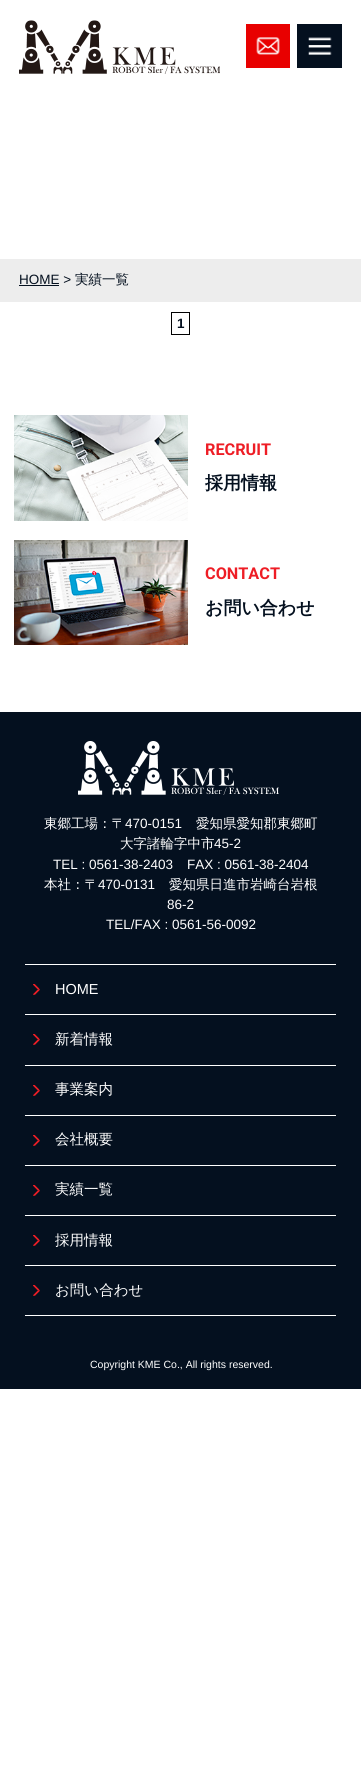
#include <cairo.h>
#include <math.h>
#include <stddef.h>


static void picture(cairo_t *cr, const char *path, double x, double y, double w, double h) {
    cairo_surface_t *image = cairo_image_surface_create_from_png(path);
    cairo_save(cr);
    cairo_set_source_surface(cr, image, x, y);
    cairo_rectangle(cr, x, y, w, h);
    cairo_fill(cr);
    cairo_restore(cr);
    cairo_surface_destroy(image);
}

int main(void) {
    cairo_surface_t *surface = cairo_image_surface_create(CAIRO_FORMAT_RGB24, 361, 1771);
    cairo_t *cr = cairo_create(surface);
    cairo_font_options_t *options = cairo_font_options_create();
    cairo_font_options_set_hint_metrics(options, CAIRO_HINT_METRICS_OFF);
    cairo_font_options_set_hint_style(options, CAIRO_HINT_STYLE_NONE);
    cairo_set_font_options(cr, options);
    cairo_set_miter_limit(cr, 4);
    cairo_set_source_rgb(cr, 1, 1, 1);
    cairo_paint(cr);
    picture(cr, "img1.png", 19, 20, 201, 54);
    picture(cr, "img2.png", 246, 24, 44, 44);
    picture(cr, "img3.png", 297, 24, 45, 44);
    cairo_set_source_rgb(cr, 0.929, 0.929, 0.929);
    cairo_rectangle(cr, 0, 259, 361, 43);
    cairo_fill(cr);
    cairo_select_font_face(cr, "Liberation Sans", CAIRO_FONT_SLANT_NORMAL, CAIRO_FONT_WEIGHT_NORMAL);
    cairo_set_font_size(cr, 13.5);
    cairo_set_source_rgb(cr, 0.016, 0.063, 0.122);
    cairo_move_to(cr, 19, 284);
    cairo_show_text(cr, "HOME >");
    cairo_rectangle(cr, 19, 285, 40, 1);
    cairo_fill(cr);
    cairo_select_font_face(cr, "WenQuanYi Zen Hei Medium", CAIRO_FONT_SLANT_NORMAL, CAIRO_FONT_WEIGHT_NORMAL);
    cairo_move_to(cr, 75, 284);
    cairo_show_text(cr, "実績一覧");
    cairo_rectangle(cr, 171.5, 312.5, 18, 22);
    cairo_set_source_rgb(cr, 0, 0, 0);
    cairo_set_line_width(cr, 1);
    cairo_stroke(cr);
    cairo_select_font_face(cr, "Liberation Sans", CAIRO_FONT_SLANT_NORMAL, CAIRO_FONT_WEIGHT_BOLD);
    cairo_set_source_rgb(cr, 0.016, 0.063, 0.122);
    cairo_move_to(cr, 177, 328);
    cairo_show_text(cr, "1");
    picture(cr, "img4.png", 14, 415, 174, 106);
    cairo_select_font_face(cr, "Roboto", CAIRO_FONT_SLANT_NORMAL, CAIRO_FONT_WEIGHT_BOLD);
    cairo_set_font_size(cr, 16.25);
    cairo_set_source_rgb(cr, 0.933, 0.114, 0.145);
    cairo_move_to(cr, 205, 455);
    cairo_show_text(cr, "RECRUIT");
    cairo_select_font_face(cr, "WenQuanYi Zen Hei", CAIRO_FONT_SLANT_NORMAL, CAIRO_FONT_WEIGHT_BOLD);
    cairo_set_font_size(cr, 18);
    cairo_set_source_rgb(cr, 0.016, 0.063, 0.122);
    cairo_move_to(cr, 205, 489);
    cairo_show_text(cr, "採用情報");
    picture(cr, "img5.png", 14, 540, 174, 105);
    cairo_select_font_face(cr, "Roboto", CAIRO_FONT_SLANT_NORMAL, CAIRO_FONT_WEIGHT_BOLD);
    cairo_set_font_size(cr, 16.25);
    cairo_set_source_rgb(cr, 0.933, 0.114, 0.145);
    cairo_move_to(cr, 205, 579);
    cairo_show_text(cr, "CONTACT");
    cairo_select_font_face(cr, "WenQuanYi Zen Hei", CAIRO_FONT_SLANT_NORMAL, CAIRO_FONT_WEIGHT_BOLD);
    cairo_set_font_size(cr, 18);
    cairo_set_source_rgb(cr, 0.016, 0.063, 0.122);
    cairo_move_to(cr, 205, 614);
    cairo_show_text(cr, "お問い合わせ");
    cairo_rectangle(cr, 0, 712, 361, 677);
    cairo_fill(cr);
    picture(cr, "img6.png", 78, 741, 201, 54);
    cairo_select_font_face(cr, "WenQuanYi Zen Hei Medium", CAIRO_FONT_SLANT_NORMAL, CAIRO_FONT_WEIGHT_NORMAL);
    cairo_set_font_size(cr, 13.5);
    cairo_set_source_rgb(cr, 1, 1, 1);
    cairo_move_to(cr, 44, 828);
    cairo_show_text(cr, "東郷工場：〒");
    cairo_select_font_face(cr, "Liberation Sans", CAIRO_FONT_SLANT_NORMAL, CAIRO_FONT_WEIGHT_NORMAL);
    cairo_move_to(cr, 125, 828);
    cairo_show_text(cr, "470-0151");
    cairo_select_font_face(cr, "WenQuanYi Zen Hei Medium", CAIRO_FONT_SLANT_NORMAL, CAIRO_FONT_WEIGHT_NORMAL);
    cairo_move_to(cr, 196, 828);
    cairo_show_text(cr, "愛知県愛知郡東郷町");
    cairo_move_to(cr, 120, 848);
    cairo_show_text(cr, "大字諸輪字中市");
    cairo_select_font_face(cr, "Liberation Sans", CAIRO_FONT_SLANT_NORMAL, CAIRO_FONT_WEIGHT_NORMAL);
    cairo_move_to(cr, 214, 848);
    cairo_show_text(cr, "45-2");
    cairo_move_to(cr, 53, 869);
    cairo_show_text(cr, "TEL : 0561-38-2403");
    cairo_move_to(cr, 187, 869);
    cairo_show_text(cr, "FAX : 0561-38-2404");
    cairo_select_font_face(cr, "WenQuanYi Zen Hei Medium", CAIRO_FONT_SLANT_NORMAL, CAIRO_FONT_WEIGHT_NORMAL);
    cairo_move_to(cr, 44, 889);
    cairo_show_text(cr, "本社：〒");
    cairo_select_font_face(cr, "Liberation Sans", CAIRO_FONT_SLANT_NORMAL, CAIRO_FONT_WEIGHT_NORMAL);
    cairo_move_to(cr, 98, 889);
    cairo_show_text(cr, "470-0131");
    cairo_select_font_face(cr, "WenQuanYi Zen Hei Medium", CAIRO_FONT_SLANT_NORMAL, CAIRO_FONT_WEIGHT_NORMAL);
    cairo_move_to(cr, 169, 889);
    cairo_show_text(cr, "愛知県日進市岩崎台岩根");
    cairo_select_font_face(cr, "Liberation Sans", CAIRO_FONT_SLANT_NORMAL, CAIRO_FONT_WEIGHT_NORMAL);
    cairo_move_to(cr, 167, 909);
    cairo_show_text(cr, "86-2");
    cairo_move_to(cr, 106, 929);
    cairo_show_text(cr, "TEL/FAX : 0561-56-0092");
    cairo_rectangle(cr, 25, 964, 311, 1);
    cairo_fill(cr);
    cairo_rectangle(cr, 25, 1014, 311, 1);
    cairo_fill(cr);
    picture(cr, "img7.png", 33, 984, 7, 11);
    cairo_set_font_size(cr, 14.5);
    cairo_move_to(cr, 55, 994);
    cairo_show_text(cr, "HOME");
    cairo_rectangle(cr, 25, 1065, 311, 1);
    cairo_fill(cr);
    picture(cr, "img7.png", 33, 1034, 7, 11);
    cairo_select_font_face(cr, "WenQuanYi Zen Hei Medium", CAIRO_FONT_SLANT_NORMAL, CAIRO_FONT_WEIGHT_NORMAL);
    cairo_move_to(cr, 55, 1044);
    cairo_show_text(cr, "新着情報");
    cairo_rectangle(cr, 25, 1115, 311, 1);
    cairo_fill(cr);
    picture(cr, "img7.png", 33, 1085, 7, 11);
    cairo_move_to(cr, 55, 1094);
    cairo_show_text(cr, "事業案内");
    cairo_rectangle(cr, 25, 1165, 311, 1);
    cairo_fill(cr);
    picture(cr, "img7.png", 33, 1135, 7, 11);
    cairo_move_to(cr, 55, 1144);
    cairo_show_text(cr, "会社概要");
    cairo_rectangle(cr, 25, 1215, 311, 1);
    cairo_fill(cr);
    picture(cr, "img7.png", 33, 1185, 7, 11);
    cairo_move_to(cr, 55, 1194);
    cairo_show_text(cr, "実績一覧");
    cairo_rectangle(cr, 25, 1265, 311, 1);
    cairo_fill(cr);
    picture(cr, "img7.png", 33, 1235, 7, 11);
    cairo_move_to(cr, 55, 1245);
    cairo_show_text(cr, "採用情報");
    cairo_rectangle(cr, 25, 1315, 311, 1);
    cairo_fill(cr);
    picture(cr, "img7.png", 33, 1285, 7, 11);
    cairo_move_to(cr, 55, 1295);
    cairo_show_text(cr, "お問い合わせ");
    cairo_select_font_face(cr, "Liberation Sans", CAIRO_FONT_SLANT_NORMAL, CAIRO_FONT_WEIGHT_NORMAL);
    cairo_set_font_size(cr, 10.5);
    cairo_move_to(cr, 90, 1368);
    cairo_show_text(cr, "Copyright KME Co., All rights reserved.");
    cairo_surface_write_to_png(surface, "page.png");
    cairo_font_options_destroy(options);
    cairo_destroy(cr);
    cairo_surface_destroy(surface);
    return 0;
}
